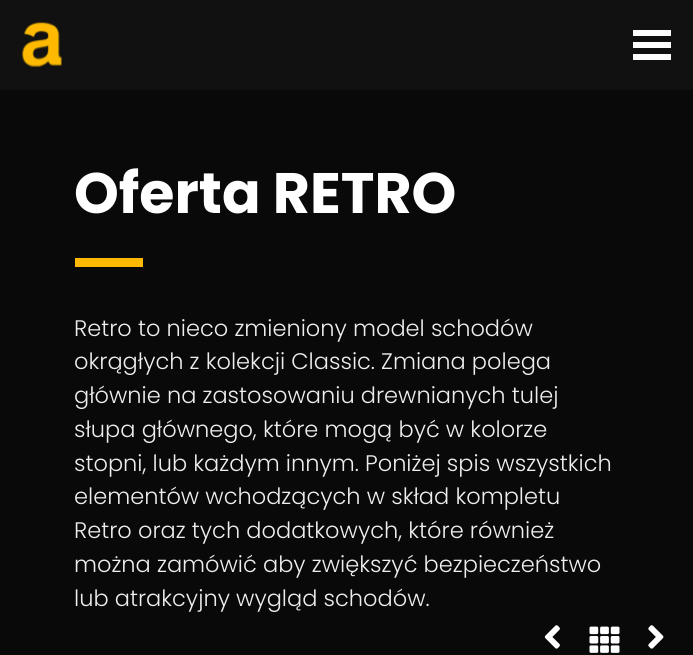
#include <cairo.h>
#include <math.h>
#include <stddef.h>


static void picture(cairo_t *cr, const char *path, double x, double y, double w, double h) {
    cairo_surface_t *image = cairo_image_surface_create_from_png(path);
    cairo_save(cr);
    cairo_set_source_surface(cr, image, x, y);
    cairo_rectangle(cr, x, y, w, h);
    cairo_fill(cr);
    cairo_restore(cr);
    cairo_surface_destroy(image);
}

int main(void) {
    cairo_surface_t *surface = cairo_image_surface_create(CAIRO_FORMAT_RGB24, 693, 655);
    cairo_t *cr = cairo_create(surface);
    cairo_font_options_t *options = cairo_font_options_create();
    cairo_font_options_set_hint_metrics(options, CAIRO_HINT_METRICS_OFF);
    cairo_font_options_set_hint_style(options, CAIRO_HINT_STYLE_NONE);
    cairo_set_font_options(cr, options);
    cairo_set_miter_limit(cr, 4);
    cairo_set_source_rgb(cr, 0.039, 0.039, 0.039);
    cairo_paint(cr);
    cairo_set_source_rgb(cr, 0.067, 0.067, 0.067);
    cairo_rectangle(cr, 0, 0, 693, 90);
    cairo_fill(cr);
    picture(cr, "img1.png", 22, 22, 40, 45);
    cairo_set_source_rgb(cr, 1, 1, 1);
    cairo_rectangle(cr, 633, 42, 38, 6);
    cairo_fill(cr);
    cairo_rectangle(cr, 633, 30, 38, 6);
    cairo_fill(cr);
    cairo_rectangle(cr, 633, 54, 38, 6);
    cairo_fill(cr);
    cairo_select_font_face(cr, "Poppins", CAIRO_FONT_SLANT_NORMAL, CAIRO_FONT_WEIGHT_BOLD);
    cairo_set_font_size(cr, 57);
    cairo_move_to(cr, 74, 213);
    cairo_show_text(cr, "Oferta RETRO");
    cairo_set_source_rgb(cr, 1, 0.725, 0.004);
    cairo_rectangle(cr, 75, 258, 68, 9);
    cairo_fill(cr);
    cairo_select_font_face(cr, "Poppins Light", CAIRO_FONT_SLANT_NORMAL, CAIRO_FONT_WEIGHT_NORMAL);
    cairo_set_font_size(cr, 22.5);
    cairo_set_source_rgb(cr, 0.933, 0.933, 0.933);
    cairo_move_to(cr, 74, 336);
    cairo_show_text(cr, "Retro to nieco zmieniony model schodów");
    cairo_move_to(cr, 74, 369);
    cairo_show_text(cr, "okrągłych z kolekcji Classic. Zmiana polega");
    cairo_move_to(cr, 74, 403);
    cairo_show_text(cr, "głównie na zastosowaniu drewnianych tulej");
    cairo_move_to(cr, 74, 437);
    cairo_show_text(cr, "słupa głównego, które mogą być w kolorze");
    cairo_move_to(cr, 74, 471);
    cairo_show_text(cr, "stopni, lub każdym innym. Poniżej spis wszystkich");
    cairo_move_to(cr, 74, 504);
    cairo_show_text(cr, "elementów wchodzących w skład kompletu");
    cairo_move_to(cr, 74, 538);
    cairo_show_text(cr, "Retro oraz tych dodatkowych, które również");
    cairo_move_to(cr, 74, 572);
    cairo_show_text(cr, "można zamówić aby zwiększyć bezpieczeństwo");
    cairo_move_to(cr, 74, 606);
    cairo_show_text(cr, "lub atrakcyjny wygląd schodów.");
    picture(cr, "img2.png", 544, 625, 16, 24);
    picture(cr, "img3.png", 589, 626, 31, 27);
    picture(cr, "img4.png", 648, 625, 16, 24);
    cairo_surface_write_to_png(surface, "page.png");
    cairo_font_options_destroy(options);
    cairo_destroy(cr);
    cairo_surface_destroy(surface);
    return 0;
}
